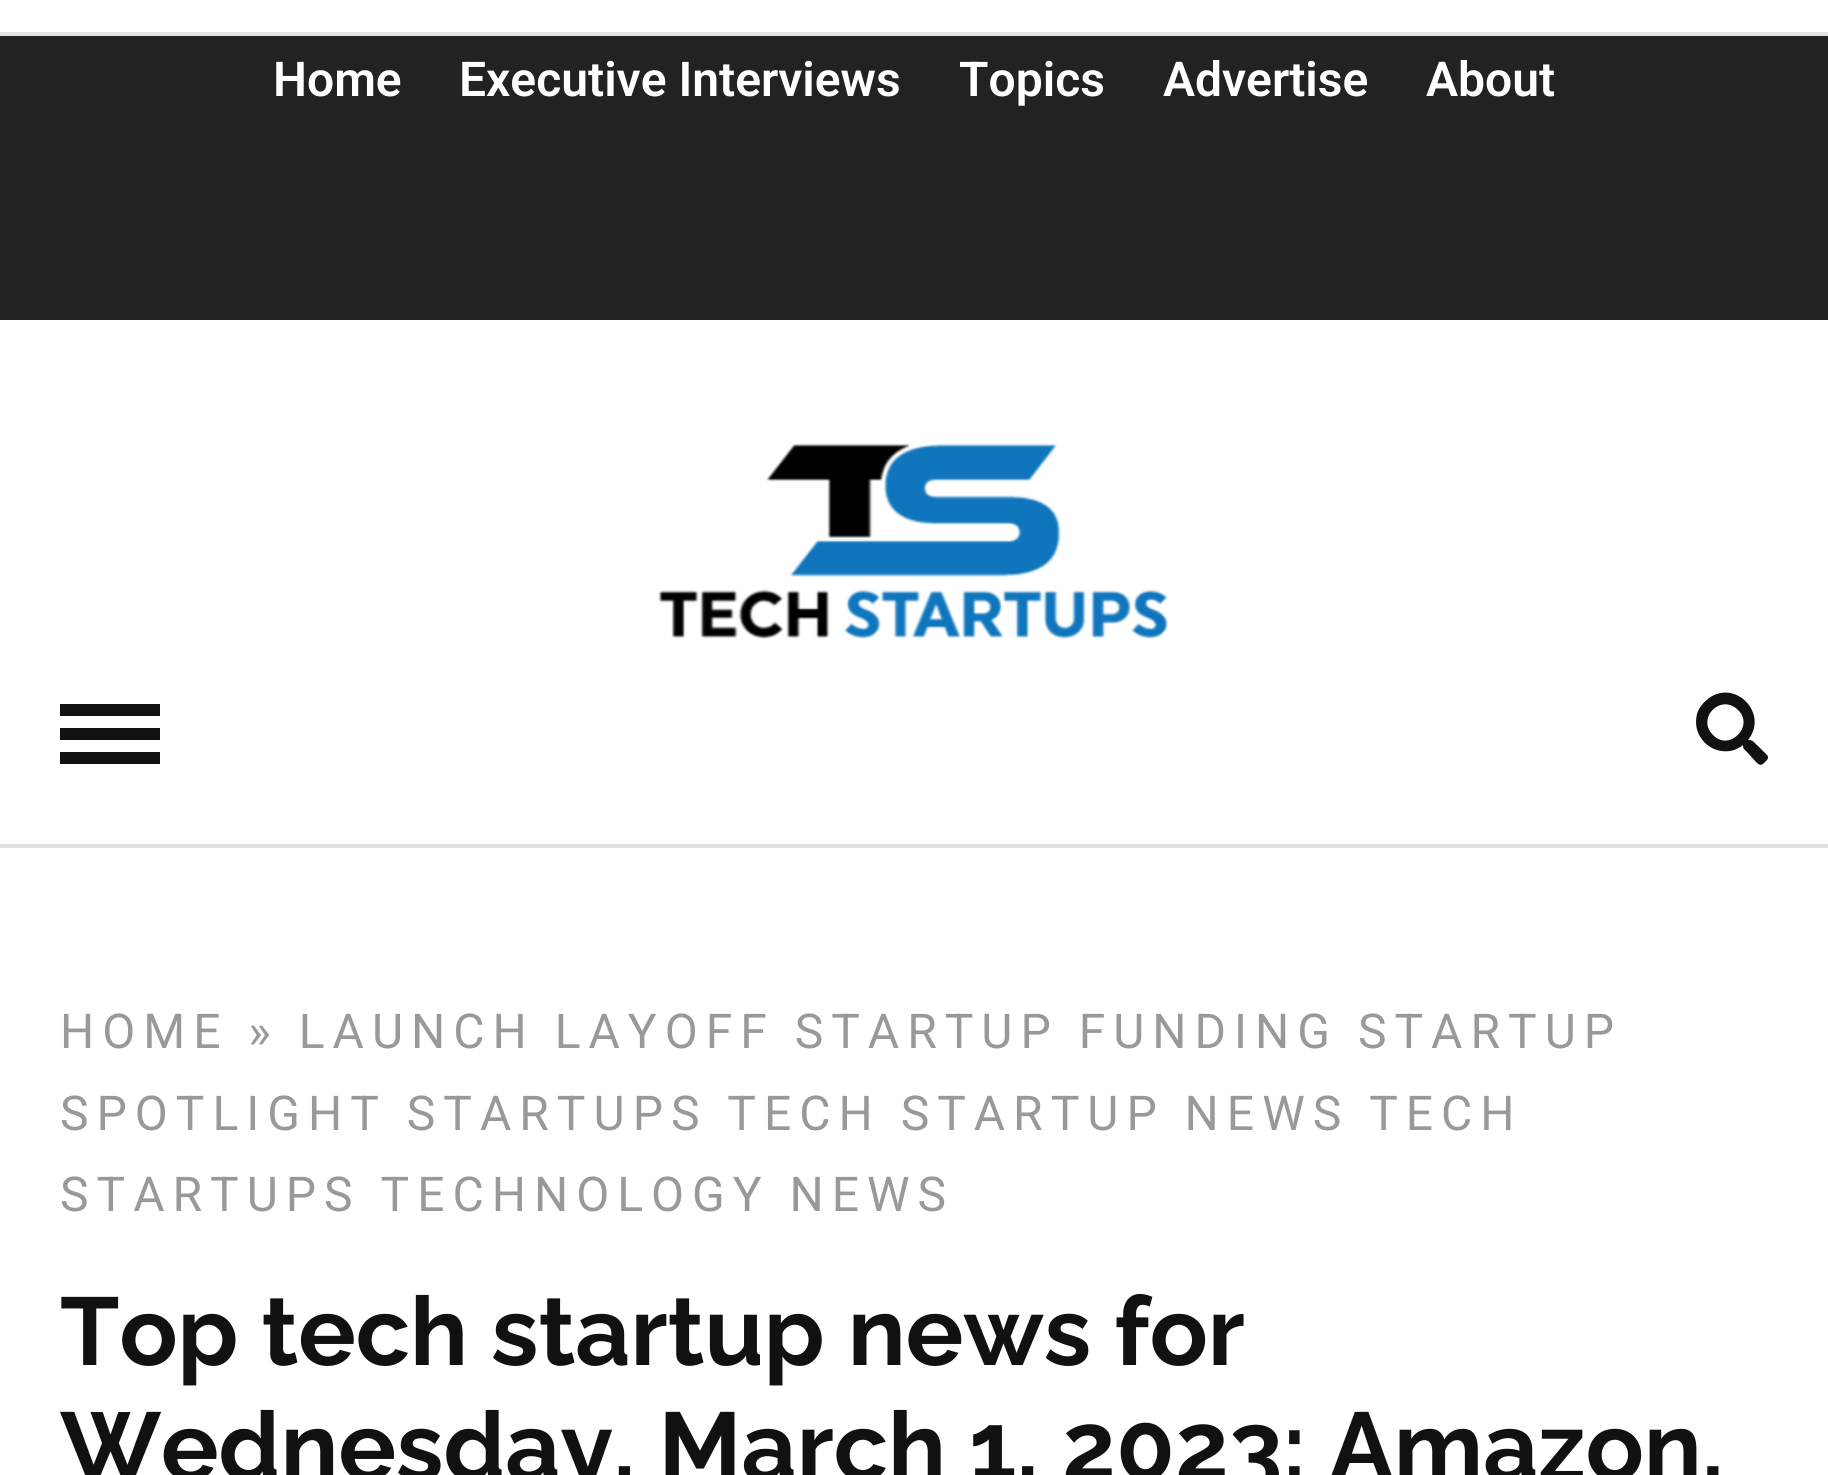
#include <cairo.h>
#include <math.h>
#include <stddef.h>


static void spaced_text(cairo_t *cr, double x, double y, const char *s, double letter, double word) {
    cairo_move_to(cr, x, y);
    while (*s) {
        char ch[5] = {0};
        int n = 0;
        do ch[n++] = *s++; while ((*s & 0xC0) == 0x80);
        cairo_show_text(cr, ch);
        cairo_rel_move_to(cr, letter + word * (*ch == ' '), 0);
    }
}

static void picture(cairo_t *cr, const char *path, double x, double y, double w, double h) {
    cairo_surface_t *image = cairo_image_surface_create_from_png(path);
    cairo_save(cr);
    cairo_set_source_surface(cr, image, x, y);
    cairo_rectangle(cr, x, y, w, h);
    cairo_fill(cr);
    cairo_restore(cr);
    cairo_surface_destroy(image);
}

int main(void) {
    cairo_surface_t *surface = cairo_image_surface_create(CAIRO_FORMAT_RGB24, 1828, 1475);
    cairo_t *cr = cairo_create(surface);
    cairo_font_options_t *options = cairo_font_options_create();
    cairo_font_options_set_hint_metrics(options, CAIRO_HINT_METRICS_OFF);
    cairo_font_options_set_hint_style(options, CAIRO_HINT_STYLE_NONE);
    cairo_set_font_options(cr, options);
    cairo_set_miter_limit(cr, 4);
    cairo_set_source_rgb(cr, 1, 1, 1);
    cairo_paint(cr);
    cairo_set_source_rgb(cr, 0.882, 0.882, 0.882);
    cairo_rectangle(cr, 0, 32, 1828, 4);
    cairo_fill(cr);
    cairo_set_source_rgb(cr, 0.133, 0.133, 0.133);
    cairo_rectangle(cr, 0, 36, 1828, 284);
    cairo_fill(cr);
    cairo_select_font_face(cr, "Roboto SemiBold", CAIRO_FONT_SLANT_NORMAL, CAIRO_FONT_WEIGHT_NORMAL);
    cairo_set_font_size(cr, 48);
    cairo_set_source_rgb(cr, 1, 1, 1);
    cairo_move_to(cr, 273, 96);
    cairo_show_text(cr, "Home");
    cairo_move_to(cr, 459, 96);
    cairo_show_text(cr, "Executive Interviews");
    cairo_move_to(cr, 959, 96);
    cairo_show_text(cr, "Topics");
    cairo_move_to(cr, 1163, 96);
    cairo_show_text(cr, "Advertise");
    cairo_move_to(cr, 1426, 96);
    cairo_show_text(cr, "About");
    cairo_set_source_rgb(cr, 0.882, 0.882, 0.882);
    cairo_rectangle(cr, 0, 844, 1828, 4);
    cairo_fill(cr);
    picture(cr, "img1.png", 658, 443, 511, 196);
    cairo_set_source_rgb(cr, 0.067, 0.067, 0.067);
    cairo_rectangle(cr, 60, 704, 100, 12);
    cairo_fill(cr);
    cairo_rectangle(cr, 60, 728, 100, 12);
    cairo_fill(cr);
    cairo_rectangle(cr, 60, 752, 100, 12);
    cairo_fill(cr);
    cairo_new_path(cr);
    cairo_move_to(cr, 1767, 755);
    cairo_curve_to(cr, 1770, 758, 1766, 761, 1764, 763);
    cairo_curve_to(cr, 1761, 766, 1759, 765, 1756, 762);
    cairo_line_to(cr, 1747, 752);
    cairo_curve_to(cr, 1744, 749, 1743, 749, 1743, 745);
    cairo_curve_to(cr, 1730, 756, 1710, 752, 1701, 738);
    cairo_curve_to(cr, 1696, 731, 1695, 722, 1697, 714);
    cairo_curve_to(cr, 1699, 707, 1704, 702, 1709, 698);
    cairo_curve_to(cr, 1736, 679, 1769, 714, 1748, 740);
    cairo_curve_to(cr, 1754, 740, 1753, 742, 1758, 746);
    cairo_close_path(cr);
    cairo_move_to(cr, 1713, 735);
    cairo_curve_to(cr, 1729, 752, 1755, 726, 1738, 710);
    cairo_curve_to(cr, 1721, 693, 1696, 718, 1713, 735);
    cairo_close_path(cr);
    cairo_fill(cr);
    cairo_select_font_face(cr, "Roboto", CAIRO_FONT_SLANT_NORMAL, CAIRO_FONT_WEIGHT_NORMAL);
    cairo_set_source_rgb(cr, 0.6, 0.6, 0.6);
    spaced_text(cr, 60, 1048, "HOME » LAUNCH LAYOFF STARTUP FUNDING STARTUP", 8, 0);
    spaced_text(cr, 60, 1130, "SPOTLIGHT STARTUPS TECH STARTUP NEWS TECH", 8, 0);
    spaced_text(cr, 60, 1211, "STARTUPS TECHNOLOGY NEWS", 8, 0);
    cairo_select_font_face(cr, "Raleway", CAIRO_FONT_SLANT_NORMAL, CAIRO_FONT_WEIGHT_BOLD);
    cairo_set_font_size(cr, 96);
    cairo_set_source_rgb(cr, 0.067, 0.067, 0.067);
    cairo_move_to(cr, 60, 1365);
    cairo_show_text(cr, "Top tech startup news for");
    cairo_move_to(cr, 60, 1480);
    cairo_show_text(cr, "Wednesday, March 1, 2023: Amazon,");
    cairo_surface_write_to_png(surface, "page.png");
    cairo_font_options_destroy(options);
    cairo_destroy(cr);
    cairo_surface_destroy(surface);
    return 0;
}
